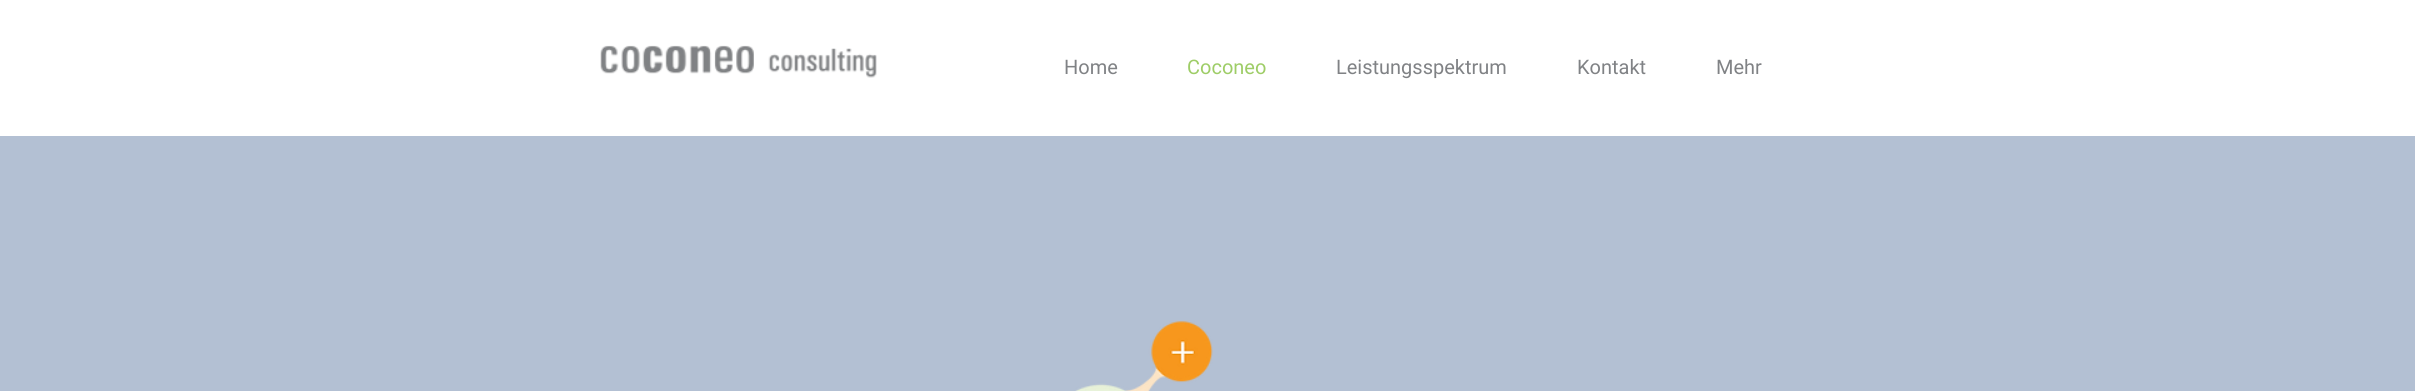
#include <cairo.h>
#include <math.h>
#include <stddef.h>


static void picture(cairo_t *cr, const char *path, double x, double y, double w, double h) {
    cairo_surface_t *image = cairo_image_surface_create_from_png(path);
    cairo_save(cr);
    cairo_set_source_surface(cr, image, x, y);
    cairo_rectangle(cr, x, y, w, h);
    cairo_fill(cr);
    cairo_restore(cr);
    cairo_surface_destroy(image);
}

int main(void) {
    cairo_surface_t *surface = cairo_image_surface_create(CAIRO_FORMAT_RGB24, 2415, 391);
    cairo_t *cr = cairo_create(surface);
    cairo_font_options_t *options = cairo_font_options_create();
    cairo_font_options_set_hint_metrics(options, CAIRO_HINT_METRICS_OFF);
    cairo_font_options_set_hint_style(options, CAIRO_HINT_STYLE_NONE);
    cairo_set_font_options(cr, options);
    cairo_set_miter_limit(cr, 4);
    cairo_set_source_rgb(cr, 1, 1, 1);
    cairo_paint(cr);
    picture(cr, "img1.png", 600, 45, 277, 33);
    cairo_select_font_face(cr, "Roboto", CAIRO_FONT_SLANT_NORMAL, CAIRO_FONT_WEIGHT_NORMAL);
    cairo_set_font_size(cr, 20);
    cairo_set_source_rgb(cr, 0.502, 0.51, 0.522);
    cairo_move_to(cr, 1064, 74);
    cairo_show_text(cr, "Home");
    cairo_set_source_rgb(cr, 0.62, 0.804, 0.404);
    cairo_move_to(cr, 1187, 74);
    cairo_show_text(cr, "Coconeo");
    cairo_set_source_rgb(cr, 0.502, 0.51, 0.522);
    cairo_move_to(cr, 1336, 74);
    cairo_show_text(cr, "Leistungsspektrum");
    cairo_move_to(cr, 1577, 74);
    cairo_show_text(cr, "Kontakt");
    cairo_move_to(cr, 1716, 74);
    cairo_show_text(cr, "Mehr");
    cairo_set_source_rgb(cr, 0.702, 0.753, 0.827);
    cairo_rectangle(cr, 0, 136, 2415, 255);
    cairo_fill(cr);
    picture(cr, "img2.png", 1075, 321, 138, 70);
    cairo_surface_write_to_png(surface, "page.png");
    cairo_font_options_destroy(options);
    cairo_destroy(cr);
    cairo_surface_destroy(surface);
    return 0;
}
